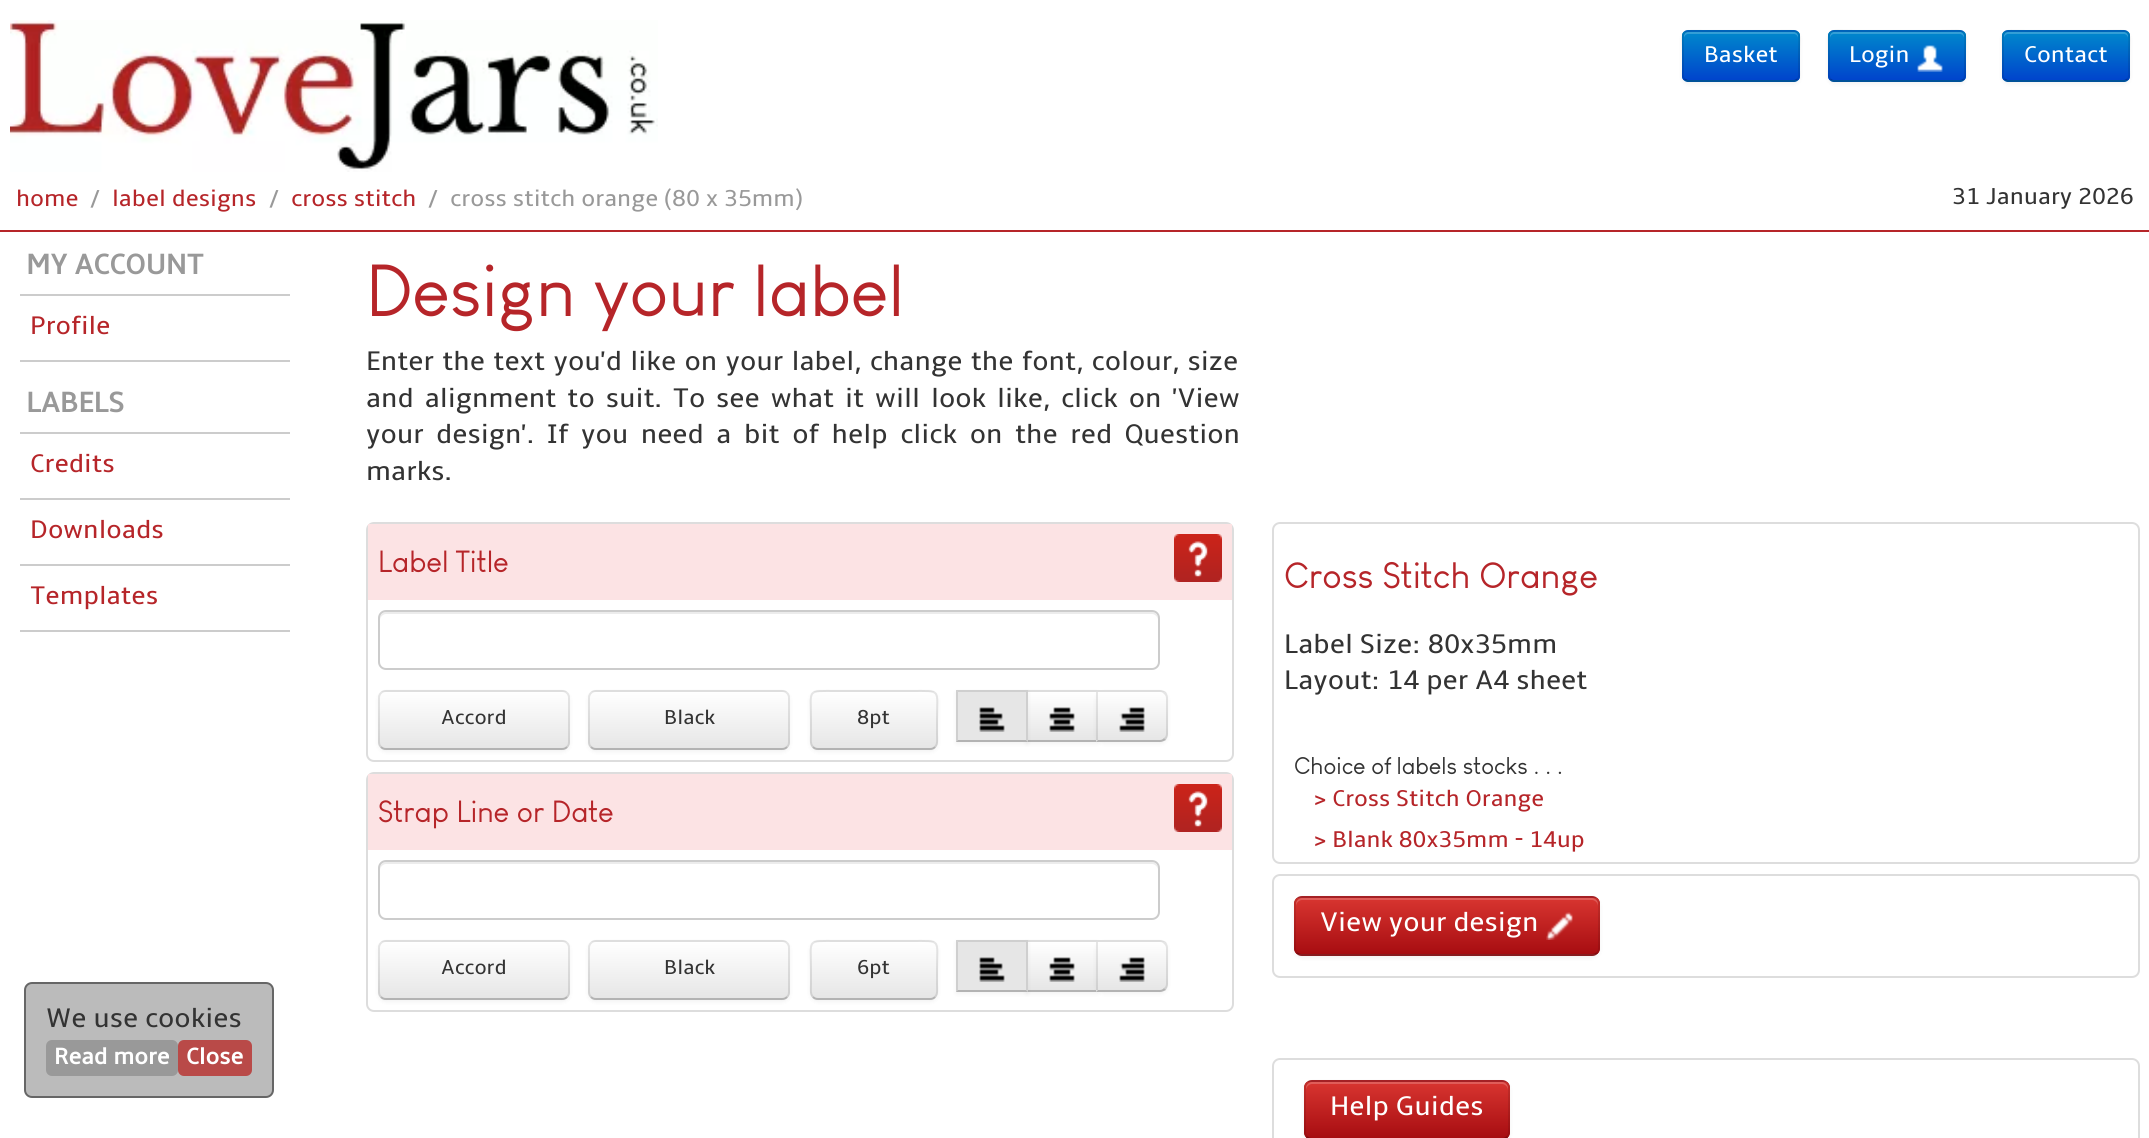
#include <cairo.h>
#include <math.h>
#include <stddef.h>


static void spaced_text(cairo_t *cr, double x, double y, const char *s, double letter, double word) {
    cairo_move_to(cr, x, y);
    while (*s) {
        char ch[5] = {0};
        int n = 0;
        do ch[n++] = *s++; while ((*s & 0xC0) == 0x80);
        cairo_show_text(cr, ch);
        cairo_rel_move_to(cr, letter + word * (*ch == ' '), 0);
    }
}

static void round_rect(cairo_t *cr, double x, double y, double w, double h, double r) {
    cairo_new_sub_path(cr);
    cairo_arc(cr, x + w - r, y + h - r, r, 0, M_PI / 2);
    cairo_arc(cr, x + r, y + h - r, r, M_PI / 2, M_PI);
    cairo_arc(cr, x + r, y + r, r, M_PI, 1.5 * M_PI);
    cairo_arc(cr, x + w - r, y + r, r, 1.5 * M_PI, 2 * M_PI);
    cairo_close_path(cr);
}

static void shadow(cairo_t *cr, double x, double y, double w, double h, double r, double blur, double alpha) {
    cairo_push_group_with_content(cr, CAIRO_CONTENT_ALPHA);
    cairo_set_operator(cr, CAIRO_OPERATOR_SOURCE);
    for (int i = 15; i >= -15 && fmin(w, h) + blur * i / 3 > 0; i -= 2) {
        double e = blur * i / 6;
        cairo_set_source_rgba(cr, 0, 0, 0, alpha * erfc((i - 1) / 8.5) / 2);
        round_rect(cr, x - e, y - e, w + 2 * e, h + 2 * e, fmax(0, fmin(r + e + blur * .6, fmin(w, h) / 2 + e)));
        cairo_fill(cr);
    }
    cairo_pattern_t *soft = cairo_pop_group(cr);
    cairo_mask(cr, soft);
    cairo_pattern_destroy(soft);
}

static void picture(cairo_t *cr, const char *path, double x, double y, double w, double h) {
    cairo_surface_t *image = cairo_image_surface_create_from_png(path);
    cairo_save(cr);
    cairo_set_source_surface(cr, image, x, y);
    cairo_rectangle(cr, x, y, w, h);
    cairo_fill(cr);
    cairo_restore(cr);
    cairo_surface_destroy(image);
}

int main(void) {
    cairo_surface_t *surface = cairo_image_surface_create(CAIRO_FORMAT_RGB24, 2149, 1138);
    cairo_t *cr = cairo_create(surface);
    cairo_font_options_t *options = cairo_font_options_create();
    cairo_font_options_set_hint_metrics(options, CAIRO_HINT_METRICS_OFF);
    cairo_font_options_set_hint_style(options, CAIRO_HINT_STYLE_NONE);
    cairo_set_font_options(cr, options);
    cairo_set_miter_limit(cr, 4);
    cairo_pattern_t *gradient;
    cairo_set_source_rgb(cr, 1, 1, 1);
    cairo_paint(cr);
    picture(cr, "img1.png", 10, 20, 648, 152);
    cairo_set_source_rgb(cr, 0, 0, 0);
    shadow(cr, 1682, 32, 118, 52, 6, 2, 0.05);
    cairo_set_source_rgb(cr, 0, 0.427, 0.8);
    round_rect(cr, 1682, 30, 118, 52, 6);
    cairo_fill(cr);
    cairo_save(cr);
    round_rect(cr, 1682, 30, 118, 52, 6);
    cairo_clip(cr);
    gradient = cairo_pattern_create_linear(1741, 32, 1741, 80);
    cairo_pattern_add_color_stop_rgba(gradient, 0, 0, 0.533, 0.8, 1);
    cairo_pattern_add_color_stop_rgba(gradient, 1, 0, 0.267, 0.8, 1);
    cairo_set_source(cr, gradient);
    cairo_pattern_destroy(gradient);
    cairo_rectangle(cr, 1682, 32, 118, 48);
    cairo_fill(cr);
    cairo_restore(cr);
    cairo_set_source_rgba(cr, 1, 1, 1, 0.2);
    cairo_new_path(cr);
    cairo_move_to(cr, 1688, 34);
    cairo_line_to(cr, 1794, 34);
    cairo_curve_to(cr, 1796, 34, 1798, 36, 1798, 38);
    cairo_line_to(cr, 1798, 36);
    cairo_curve_to(cr, 1798, 34, 1796, 32, 1794, 32);
    cairo_line_to(cr, 1688, 32);
    cairo_curve_to(cr, 1686, 32, 1684, 34, 1684, 36);
    cairo_line_to(cr, 1684, 38);
    cairo_curve_to(cr, 1684, 36, 1686, 34, 1688, 34);
    cairo_close_path(cr);
    cairo_fill(cr);
    cairo_new_path(cr);
    cairo_move_to(cr, 1797.5, 79.5);
    cairo_line_to(cr, 1794.5, 81);
    cairo_line_to(cr, 1687.5, 81);
    cairo_line_to(cr, 1684.5, 79.5);
    cairo_set_source_rgba(cr, 0, 0, 0, 0.25);
    cairo_stroke(cr);
    cairo_new_path(cr);
    cairo_move_to(cr, 1684.5, 79.5);
    cairo_curve_to(cr, 1682, 77, 1683, 72, 1683, 69.5);
    cairo_line_to(cr, 1683, 56);
    cairo_curve_to(cr, 1683, 28, 1678, 31, 1705.5, 31);
    cairo_line_to(cr, 1776.5, 31);
    cairo_curve_to(cr, 1804, 31, 1799, 28, 1799, 56);
    cairo_line_to(cr, 1799, 69.5);
    cairo_curve_to(cr, 1799, 72, 1800, 77, 1797.5, 79.5);
    cairo_set_source_rgba(cr, 0, 0, 0, 0.1);
    cairo_stroke(cr);
    cairo_select_font_face(cr, "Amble", CAIRO_FONT_SLANT_NORMAL, CAIRO_FONT_WEIGHT_NORMAL);
    cairo_set_font_size(cr, 23.75);
    cairo_set_source_rgb(cr, 1, 1, 1);
    cairo_move_to(cr, 1704, 62);
    cairo_show_text(cr, "Basket");
    cairo_set_source_rgb(cr, 0, 0, 0);
    shadow(cr, 1828, 32, 138, 52, 6, 2, 0.05);
    cairo_set_source_rgb(cr, 0, 0.427, 0.8);
    round_rect(cr, 1828, 30, 138, 52, 6);
    cairo_fill(cr);
    cairo_save(cr);
    round_rect(cr, 1828, 30, 138, 52, 6);
    cairo_clip(cr);
    gradient = cairo_pattern_create_linear(1897, 32, 1897, 80);
    cairo_pattern_add_color_stop_rgba(gradient, 0, 0, 0.533, 0.8, 1);
    cairo_pattern_add_color_stop_rgba(gradient, 1, 0, 0.267, 0.8, 1);
    cairo_set_source(cr, gradient);
    cairo_pattern_destroy(gradient);
    cairo_rectangle(cr, 1828, 32, 138, 48);
    cairo_fill(cr);
    cairo_restore(cr);
    cairo_set_source_rgba(cr, 1, 1, 1, 0.2);
    cairo_new_path(cr);
    cairo_move_to(cr, 1834, 34);
    cairo_line_to(cr, 1960, 34);
    cairo_curve_to(cr, 1962, 34, 1964, 36, 1964, 38);
    cairo_line_to(cr, 1964, 36);
    cairo_curve_to(cr, 1964, 34, 1962, 32, 1960, 32);
    cairo_line_to(cr, 1834, 32);
    cairo_curve_to(cr, 1832, 32, 1830, 34, 1830, 36);
    cairo_line_to(cr, 1830, 38);
    cairo_curve_to(cr, 1830, 36, 1832, 34, 1834, 34);
    cairo_close_path(cr);
    cairo_fill(cr);
    cairo_new_path(cr);
    cairo_move_to(cr, 1963.5, 79.5);
    cairo_curve_to(cr, 1962.5, 80.5, 1961.5, 81, 1960, 81);
    cairo_line_to(cr, 1834, 81);
    cairo_curve_to(cr, 1832.5, 81, 1831.5, 80.5, 1830.5, 79.5);
    cairo_set_source_rgba(cr, 0, 0, 0, 0.25);
    cairo_stroke(cr);
    cairo_new_path(cr);
    cairo_move_to(cr, 1830.5, 79.5);
    cairo_curve_to(cr, 1828, 77, 1829, 72, 1829, 69.5);
    cairo_line_to(cr, 1829, 56);
    cairo_curve_to(cr, 1829, 26.5, 1824, 31, 1855, 31);
    cairo_line_to(cr, 1939, 31);
    cairo_curve_to(cr, 1970, 31, 1965, 26.5, 1965, 56);
    cairo_line_to(cr, 1965, 69.5);
    cairo_curve_to(cr, 1965, 72, 1966, 77, 1963.5, 79.5);
    cairo_set_source_rgba(cr, 0, 0, 0, 0.1);
    cairo_stroke(cr);
    cairo_set_source_rgb(cr, 1, 1, 1);
    cairo_move_to(cr, 1849, 62);
    cairo_show_text(cr, "Login");
    picture(cr, "img2.png", 1917, 45, 26, 27);
    cairo_set_source_rgb(cr, 0, 0, 0);
    shadow(cr, 2002, 32, 128, 52, 6, 2, 0.05);
    cairo_set_source_rgb(cr, 0, 0.427, 0.8);
    round_rect(cr, 2002, 30, 128, 52, 6);
    cairo_fill(cr);
    cairo_save(cr);
    round_rect(cr, 2002, 30, 128, 52, 6);
    cairo_clip(cr);
    gradient = cairo_pattern_create_linear(2066, 32, 2066, 80);
    cairo_pattern_add_color_stop_rgba(gradient, 0, 0, 0.533, 0.8, 1);
    cairo_pattern_add_color_stop_rgba(gradient, 1, 0, 0.267, 0.8, 1);
    cairo_set_source(cr, gradient);
    cairo_pattern_destroy(gradient);
    cairo_rectangle(cr, 2002, 32, 128, 48);
    cairo_fill(cr);
    cairo_restore(cr);
    cairo_set_source_rgba(cr, 1, 1, 1, 0.2);
    cairo_new_path(cr);
    cairo_move_to(cr, 2008, 34);
    cairo_line_to(cr, 2124, 34);
    cairo_curve_to(cr, 2126, 34, 2128, 36, 2128, 38);
    cairo_line_to(cr, 2128, 36);
    cairo_curve_to(cr, 2128, 34, 2126, 32, 2124, 32);
    cairo_line_to(cr, 2008, 32);
    cairo_curve_to(cr, 2006, 32, 2004, 34, 2004, 36);
    cairo_line_to(cr, 2004, 38);
    cairo_curve_to(cr, 2004, 36, 2006, 34, 2008, 34);
    cairo_close_path(cr);
    cairo_fill(cr);
    cairo_new_path(cr);
    cairo_move_to(cr, 2127.5, 79.5);
    cairo_line_to(cr, 2124.5, 81);
    cairo_line_to(cr, 2007.5, 81);
    cairo_line_to(cr, 2004.5, 79.5);
    cairo_set_source_rgba(cr, 0, 0, 0, 0.25);
    cairo_stroke(cr);
    cairo_new_path(cr);
    cairo_move_to(cr, 2004.5, 79.5);
    cairo_curve_to(cr, 2002, 77, 2003, 72, 2003, 69.5);
    cairo_line_to(cr, 2003, 56);
    cairo_curve_to(cr, 2003, 27, 1998, 31, 2027.5, 31);
    cairo_line_to(cr, 2104.5, 31);
    cairo_curve_to(cr, 2134, 31, 2129, 27, 2129, 56);
    cairo_line_to(cr, 2129, 69.5);
    cairo_curve_to(cr, 2129, 72, 2130, 77, 2127.5, 79.5);
    cairo_set_source_rgba(cr, 0, 0, 0, 0.1);
    cairo_stroke(cr);
    cairo_set_source_rgb(cr, 1, 1, 1);
    cairo_move_to(cr, 2024, 62);
    cairo_show_text(cr, "Contact");
    cairo_set_source_rgb(cr, 0.714, 0.145, 0.161);
    cairo_rectangle(cr, 0, 230, 2149, 2);
    cairo_fill(cr);
    cairo_set_font_size(cr, 24);
    cairo_move_to(cr, 16, 206);
    cairo_show_text(cr, "home");
    cairo_set_source_rgb(cr, 0.6, 0.6, 0.6);
    cairo_move_to(cr, 90, 206);
    cairo_show_text(cr, "/");
    cairo_set_source_rgb(cr, 0.714, 0.145, 0.161);
    cairo_move_to(cr, 112, 206);
    cairo_show_text(cr, "label designs");
    cairo_set_source_rgb(cr, 0.6, 0.6, 0.6);
    cairo_move_to(cr, 269, 206);
    cairo_show_text(cr, "/");
    cairo_set_source_rgb(cr, 0.714, 0.145, 0.161);
    cairo_move_to(cr, 291, 206);
    cairo_show_text(cr, "cross stitch");
    cairo_set_source_rgb(cr, 0.6, 0.6, 0.6);
    cairo_move_to(cr, 428, 206);
    cairo_show_text(cr, "/");
    cairo_move_to(cr, 450, 206);
    cairo_show_text(cr, "cross stitch orange (80 x 35mm)");
    cairo_set_source_rgb(cr, 0.2, 0.2, 0.2);
    cairo_move_to(cr, 1952, 204);
    cairo_show_text(cr, "31 January 2026");
    cairo_set_source_rgb(cr, 0.8, 0.8, 0.8);
    cairo_rectangle(cr, 20, 294, 270, 2);
    cairo_fill(cr);
    cairo_select_font_face(cr, "Amble", CAIRO_FONT_SLANT_NORMAL, CAIRO_FONT_WEIGHT_BOLD);
    cairo_set_font_size(cr, 29.25);
    cairo_set_source_rgb(cr, 0.6, 0.6, 0.6);
    cairo_move_to(cr, 26, 274);
    cairo_show_text(cr, "MY ACCOUNT");
    cairo_set_source_rgb(cr, 0.8, 0.8, 0.8);
    cairo_rectangle(cr, 20, 360, 270, 2);
    cairo_fill(cr);
    cairo_select_font_face(cr, "Amble", CAIRO_FONT_SLANT_NORMAL, CAIRO_FONT_WEIGHT_NORMAL);
    cairo_set_font_size(cr, 26.5);
    cairo_set_source_rgb(cr, 0.714, 0.145, 0.161);
    cairo_move_to(cr, 30, 334);
    cairo_show_text(cr, "Profile");
    cairo_set_source_rgb(cr, 0.8, 0.8, 0.8);
    cairo_rectangle(cr, 20, 432, 270, 2);
    cairo_fill(cr);
    cairo_select_font_face(cr, "Amble", CAIRO_FONT_SLANT_NORMAL, CAIRO_FONT_WEIGHT_BOLD);
    cairo_set_font_size(cr, 29.25);
    cairo_set_source_rgb(cr, 0.6, 0.6, 0.6);
    cairo_move_to(cr, 26, 412);
    cairo_show_text(cr, "LABELS");
    cairo_set_source_rgb(cr, 0.8, 0.8, 0.8);
    cairo_rectangle(cr, 20, 498, 270, 2);
    cairo_fill(cr);
    cairo_select_font_face(cr, "Amble", CAIRO_FONT_SLANT_NORMAL, CAIRO_FONT_WEIGHT_NORMAL);
    cairo_set_font_size(cr, 26.5);
    cairo_set_source_rgb(cr, 0.714, 0.145, 0.161);
    cairo_move_to(cr, 30, 472);
    cairo_show_text(cr, "Credits");
    cairo_set_source_rgb(cr, 0.8, 0.8, 0.8);
    cairo_rectangle(cr, 20, 564, 270, 2);
    cairo_fill(cr);
    cairo_set_source_rgb(cr, 0.714, 0.145, 0.161);
    cairo_move_to(cr, 30, 538);
    cairo_show_text(cr, "Downloads");
    cairo_set_source_rgb(cr, 0.8, 0.8, 0.8);
    cairo_rectangle(cr, 20, 630, 270, 2);
    cairo_fill(cr);
    cairo_set_source_rgb(cr, 0.714, 0.145, 0.161);
    cairo_move_to(cr, 30, 604);
    cairo_show_text(cr, "Templates");
    cairo_select_font_face(cr, "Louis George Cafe", CAIRO_FONT_SLANT_NORMAL, CAIRO_FONT_WEIGHT_NORMAL);
    cairo_set_font_size(cr, 72);
    cairo_move_to(cr, 366, 316);
    cairo_show_text(cr, "Design your label");
    cairo_select_font_face(cr, "Amble", CAIRO_FONT_SLANT_NORMAL, CAIRO_FONT_WEIGHT_NORMAL);
    cairo_set_font_size(cr, 28);
    cairo_set_source_rgb(cr, 0.2, 0.2, 0.2);
    spaced_text(cr, 366, 370, "Enter the text you'd like on your label, change the font, colour, size", 0, 1.5);
    spaced_text(cr, 366, 407, "and alignment to suit. To see what it will look like, click on 'View", 0, 4.1);
    spaced_text(cr, 366, 443, "your design'. If you need a bit of help click on the red Question", 0, 5.75);
    cairo_move_to(cr, 366, 480);
    cairo_show_text(cr, "marks.");
    round_rect(cr, 367, 523, 866, 238, 7);
    cairo_set_source_rgb(cr, 0.867, 0.867, 0.867);
    cairo_stroke(cr);
    cairo_set_source_rgb(cr, 0.988, 0.89, 0.894);
    cairo_rectangle(cr, 368, 524, 864, 76);
    cairo_fill(cr);
    cairo_select_font_face(cr, "Louis George Cafe", CAIRO_FONT_SLANT_NORMAL, CAIRO_FONT_WEIGHT_NORMAL);
    cairo_set_font_size(cr, 30);
    cairo_set_source_rgb(cr, 0.714, 0.145, 0.161);
    cairo_move_to(cr, 378, 572);
    cairo_show_text(cr, "Label Title");
    picture(cr, "img3.png", 1174, 534, 48, 48);
    cairo_set_source_rgb(cr, 0.925, 0.925, 0.925);
    cairo_new_path(cr);
    cairo_move_to(cr, 386, 614);
    cairo_line_to(cr, 1152, 614);
    cairo_curve_to(cr, 1155, 614, 1158, 617, 1158, 620);
    cairo_line_to(cr, 1158, 618);
    cairo_curve_to(cr, 1158, 615, 1155, 612, 1152, 612);
    cairo_line_to(cr, 386, 612);
    cairo_curve_to(cr, 383, 612, 380, 615, 380, 618);
    cairo_line_to(cr, 380, 620);
    cairo_curve_to(cr, 380, 617, 383, 614, 386, 614);
    cairo_close_path(cr);
    cairo_fill(cr);
    round_rect(cr, 379, 611, 780, 58, 7);
    cairo_set_source_rgb(cr, 0.8, 0.8, 0.8);
    cairo_stroke(cr);
    cairo_set_source_rgb(cr, 0, 0, 0);
    shadow(cr, 378, 692, 192, 60, 8, 2, 0.05);
    cairo_set_source_rgb(cr, 0.961, 0.961, 0.961);
    round_rect(cr, 378, 690, 192, 60, 8);
    cairo_fill(cr);
    cairo_save(cr);
    round_rect(cr, 378, 690, 192, 60, 8);
    cairo_clip(cr);
    gradient = cairo_pattern_create_linear(474, 692, 474, 748);
    cairo_pattern_add_color_stop_rgba(gradient, 0, 1, 1, 1, 1);
    cairo_pattern_add_color_stop_rgba(gradient, 1, 0.902, 0.902, 0.902, 1);
    cairo_set_source(cr, gradient);
    cairo_pattern_destroy(gradient);
    cairo_rectangle(cr, 378, 692, 192, 56);
    cairo_fill(cr);
    cairo_restore(cr);
    cairo_new_path(cr);
    cairo_move_to(cr, 567, 747);
    cairo_curve_to(cr, 565.5, 748.5, 564, 749, 562, 749);
    cairo_line_to(cr, 386, 749);
    cairo_curve_to(cr, 384, 749, 382.5, 748.5, 381, 747);
    cairo_set_source_rgb(cr, 0.702, 0.702, 0.702);
    cairo_stroke(cr);
    cairo_new_path(cr);
    cairo_move_to(cr, 381, 747);
    cairo_curve_to(cr, 379.5, 745.5, 379, 744, 379, 742);
    cairo_line_to(cr, 379, 698);
    cairo_curve_to(cr, 379, 696, 379.5, 694.5, 381, 693);
    cairo_curve_to(cr, 382.5, 691.5, 384, 691, 386, 691);
    cairo_line_to(cr, 562, 691);
    cairo_curve_to(cr, 564, 691, 565.5, 691.5, 567, 693);
    cairo_curve_to(cr, 568.5, 694.5, 569, 696, 569, 698);
    cairo_line_to(cr, 569, 742);
    cairo_curve_to(cr, 569, 744, 568.5, 745.5, 567, 747);
    cairo_set_source_rgba(cr, 0, 0, 0, 0.1);
    cairo_stroke(cr);
    cairo_select_font_face(cr, "Amble", CAIRO_FONT_SLANT_NORMAL, CAIRO_FONT_WEIGHT_NORMAL);
    cairo_set_font_size(cr, 21);
    cairo_set_source_rgb(cr, 0.2, 0.2, 0.2);
    cairo_move_to(cr, 441, 724);
    cairo_show_text(cr, "Accord");
    cairo_set_source_rgb(cr, 0, 0, 0);
    shadow(cr, 588, 692, 202, 60, 8, 2, 0.05);
    cairo_set_source_rgb(cr, 0.961, 0.961, 0.961);
    round_rect(cr, 588, 690, 202, 60, 8);
    cairo_fill(cr);
    cairo_save(cr);
    round_rect(cr, 588, 690, 202, 60, 8);
    cairo_clip(cr);
    gradient = cairo_pattern_create_linear(689, 692, 689, 748);
    cairo_pattern_add_color_stop_rgba(gradient, 0, 1, 1, 1, 1);
    cairo_pattern_add_color_stop_rgba(gradient, 1, 0.902, 0.902, 0.902, 1);
    cairo_set_source(cr, gradient);
    cairo_pattern_destroy(gradient);
    cairo_rectangle(cr, 588, 692, 202, 56);
    cairo_fill(cr);
    cairo_restore(cr);
    cairo_new_path(cr);
    cairo_move_to(cr, 787, 747);
    cairo_curve_to(cr, 785.5, 748.5, 784, 749, 782, 749);
    cairo_line_to(cr, 596, 749);
    cairo_curve_to(cr, 594, 749, 592.5, 748.5, 591, 747);
    cairo_set_source_rgb(cr, 0.702, 0.702, 0.702);
    cairo_stroke(cr);
    cairo_new_path(cr);
    cairo_move_to(cr, 591, 747);
    cairo_curve_to(cr, 589.5, 745.5, 589, 744, 589, 742);
    cairo_line_to(cr, 589, 698);
    cairo_curve_to(cr, 589, 696, 589.5, 694.5, 591, 693);
    cairo_curve_to(cr, 592.5, 691.5, 594, 691, 596, 691);
    cairo_line_to(cr, 782, 691);
    cairo_curve_to(cr, 784, 691, 785.5, 691.5, 787, 693);
    cairo_curve_to(cr, 788.5, 694.5, 789, 696, 789, 698);
    cairo_line_to(cr, 789, 742);
    cairo_curve_to(cr, 789, 744, 788.5, 745.5, 787, 747);
    cairo_set_source_rgba(cr, 0, 0, 0, 0.1);
    cairo_stroke(cr);
    cairo_set_source_rgb(cr, 0.2, 0.2, 0.2);
    cairo_move_to(cr, 664, 724);
    cairo_show_text(cr, "Black");
    cairo_set_source_rgb(cr, 0, 0, 0);
    shadow(cr, 810, 692, 128, 60, 8, 2, 0.05);
    cairo_set_source_rgb(cr, 0.961, 0.961, 0.961);
    round_rect(cr, 810, 690, 128, 60, 8);
    cairo_fill(cr);
    cairo_save(cr);
    round_rect(cr, 810, 690, 128, 60, 8);
    cairo_clip(cr);
    gradient = cairo_pattern_create_linear(874, 692, 874, 748);
    cairo_pattern_add_color_stop_rgba(gradient, 0, 1, 1, 1, 1);
    cairo_pattern_add_color_stop_rgba(gradient, 1, 0.902, 0.902, 0.902, 1);
    cairo_set_source(cr, gradient);
    cairo_pattern_destroy(gradient);
    cairo_rectangle(cr, 810, 692, 128, 56);
    cairo_fill(cr);
    cairo_restore(cr);
    cairo_new_path(cr);
    cairo_move_to(cr, 935, 747);
    cairo_curve_to(cr, 933.5, 748.5, 932, 749, 930, 749);
    cairo_line_to(cr, 818, 749);
    cairo_curve_to(cr, 816, 749, 814.5, 748.5, 813, 747);
    cairo_set_source_rgb(cr, 0.702, 0.702, 0.702);
    cairo_stroke(cr);
    cairo_new_path(cr);
    cairo_move_to(cr, 813, 747);
    cairo_curve_to(cr, 810, 744, 811, 738.5, 811, 734.5);
    cairo_line_to(cr, 811, 720);
    cairo_curve_to(cr, 811, 688.5, 806, 691, 836.5, 691);
    cairo_line_to(cr, 911.5, 691);
    cairo_curve_to(cr, 942, 691, 937, 688.5, 937, 720);
    cairo_line_to(cr, 937, 734.5);
    cairo_curve_to(cr, 937, 738.5, 938, 744, 935, 747);
    cairo_set_source_rgba(cr, 0, 0, 0, 0.1);
    cairo_stroke(cr);
    cairo_set_source_rgb(cr, 0.2, 0.2, 0.2);
    cairo_move_to(cr, 857, 724);
    cairo_show_text(cr, "8pt");
    cairo_set_source_rgb(cr, 0, 0, 0);
    shadow(cr, 1026, 692, 72, 52, 0, 2, 0.05);
    gradient = cairo_pattern_create_linear(1062, 692, 1062, 740);
    cairo_pattern_add_color_stop_rgba(gradient, 0, 1, 1, 1, 1);
    cairo_pattern_add_color_stop_rgba(gradient, 1, 0.902, 0.902, 0.902, 1);
    cairo_set_source(cr, gradient);
    cairo_pattern_destroy(gradient);
    cairo_rectangle(cr, 1028, 692, 68, 48);
    cairo_fill(cr);
    cairo_set_source_rgb(cr, 0.867, 0.867, 0.867);
    cairo_new_path(cr);
    cairo_move_to(cr, 1026, 690);
    cairo_line_to(cr, 1098, 690);
    cairo_line_to(cr, 1096, 692);
    cairo_line_to(cr, 1028, 692);
    cairo_close_path(cr);
    cairo_fill(cr);
    cairo_set_source_rgb(cr, 0.702, 0.702, 0.702);
    cairo_new_path(cr);
    cairo_move_to(cr, 1098, 742);
    cairo_line_to(cr, 1026, 742);
    cairo_line_to(cr, 1028, 740);
    cairo_line_to(cr, 1096, 740);
    cairo_close_path(cr);
    cairo_fill(cr);
    cairo_set_source_rgb(cr, 0, 0, 0);
    shadow(cr, 956, 692, 72, 52, 0, 2, 0.05);
    cairo_set_source_rgb(cr, 0.902, 0.902, 0.902);
    cairo_rectangle(cr, 956, 690, 72, 52);
    cairo_fill(cr);
    cairo_set_source_rgb(cr, 0.812, 0.812, 0.812);
    cairo_new_path(cr);
    cairo_move_to(cr, 956, 690);
    cairo_line_to(cr, 1028, 690);
    cairo_line_to(cr, 1026, 692);
    cairo_line_to(cr, 958, 692);
    cairo_close_path(cr);
    cairo_fill(cr);
    cairo_set_source_rgba(cr, 0, 0, 0, 0.1);
    cairo_new_path(cr);
    cairo_move_to(cr, 1028, 690);
    cairo_line_to(cr, 1028, 742);
    cairo_line_to(cr, 1026, 740);
    cairo_line_to(cr, 1026, 692);
    cairo_close_path(cr);
    cairo_fill(cr);
    cairo_set_source_rgb(cr, 0.702, 0.702, 0.702);
    cairo_new_path(cr);
    cairo_move_to(cr, 1028, 742);
    cairo_line_to(cr, 956, 742);
    cairo_line_to(cr, 958, 740);
    cairo_line_to(cr, 1026, 740);
    cairo_close_path(cr);
    cairo_fill(cr);
    cairo_set_source_rgba(cr, 0, 0, 0, 0.1);
    cairo_new_path(cr);
    cairo_move_to(cr, 956, 742);
    cairo_line_to(cr, 956, 690);
    cairo_line_to(cr, 958, 692);
    cairo_line_to(cr, 958, 740);
    cairo_close_path(cr);
    cairo_fill(cr);
    picture(cr, "img4.png", 979, 707, 26, 25);
    picture(cr, "img5.png", 1049, 707, 26, 25);
    cairo_set_source_rgb(cr, 0, 0, 0);
    shadow(cr, 1096, 692, 72, 52, 8, 2, 0.05);
    cairo_set_source_rgb(cr, 0.961, 0.961, 0.961);
    cairo_new_path(cr);
    cairo_move_to(cr, 1096, 690);
    cairo_line_to(cr, 1160, 690);
    cairo_curve_to(cr, 1164.5, 690, 1168, 693.5, 1168, 698);
    cairo_line_to(cr, 1168, 734);
    cairo_curve_to(cr, 1168, 738.5, 1164.5, 742, 1160, 742);
    cairo_line_to(cr, 1096, 742);
    cairo_close_path(cr);
    cairo_fill(cr);
    cairo_save(cr);
    cairo_new_path(cr);
    cairo_move_to(cr, 1096, 690);
    cairo_line_to(cr, 1160, 690);
    cairo_curve_to(cr, 1164.5, 690, 1168, 693.5, 1168, 698);
    cairo_line_to(cr, 1168, 734);
    cairo_curve_to(cr, 1168, 738.5, 1164.5, 742, 1160, 742);
    cairo_line_to(cr, 1096, 742);
    cairo_close_path(cr);
    cairo_clip(cr);
    gradient = cairo_pattern_create_linear(1132, 692, 1132, 740);
    cairo_pattern_add_color_stop_rgba(gradient, 0, 1, 1, 1, 1);
    cairo_pattern_add_color_stop_rgba(gradient, 1, 0.902, 0.902, 0.902, 1);
    cairo_set_source(cr, gradient);
    cairo_pattern_destroy(gradient);
    cairo_rectangle(cr, 1096, 692, 72, 48);
    cairo_fill(cr);
    cairo_restore(cr);
    cairo_set_source_rgba(cr, 0, 0, 0, 0.1);
    cairo_new_path(cr);
    cairo_move_to(cr, 1096, 690);
    cairo_line_to(cr, 1098, 692);
    cairo_line_to(cr, 1160, 692);
    cairo_curve_to(cr, 1162, 692, 1163, 693, 1164, 694);
    cairo_line_to(cr, 1166, 692);
    cairo_curve_to(cr, 1164, 691, 1162, 690, 1160, 690);
    cairo_close_path(cr);
    cairo_fill(cr);
    cairo_new_path(cr);
    cairo_move_to(cr, 1168, 734);
    cairo_line_to(cr, 1168, 698);
    cairo_curve_to(cr, 1168, 696, 1167, 694, 1166, 692);
    cairo_line_to(cr, 1164, 694);
    cairo_curve_to(cr, 1165, 695, 1166, 696, 1166, 698);
    cairo_line_to(cr, 1166, 734);
    cairo_curve_to(cr, 1166, 736, 1165, 737, 1164, 738);
    cairo_line_to(cr, 1166, 740);
    cairo_curve_to(cr, 1167, 738, 1168, 736, 1168, 734);
    cairo_close_path(cr);
    cairo_fill(cr);
    cairo_set_source_rgb(cr, 0.702, 0.702, 0.702);
    cairo_new_path(cr);
    cairo_move_to(cr, 1160, 742);
    cairo_curve_to(cr, 1162, 742, 1164, 741, 1166, 740);
    cairo_line_to(cr, 1164, 738);
    cairo_curve_to(cr, 1163, 739, 1162, 740, 1160, 740);
    cairo_line_to(cr, 1098, 740);
    cairo_line_to(cr, 1096, 742);
    cairo_close_path(cr);
    cairo_fill(cr);
    cairo_set_source_rgba(cr, 0, 0, 0, 0.1);
    cairo_new_path(cr);
    cairo_move_to(cr, 1096, 690);
    cairo_line_to(cr, 1096, 742);
    cairo_line_to(cr, 1098, 740);
    cairo_line_to(cr, 1098, 692);
    cairo_close_path(cr);
    cairo_fill(cr);
    picture(cr, "img6.png", 1119, 707, 26, 25);
    round_rect(cr, 367, 773, 866, 238, 7);
    cairo_set_source_rgb(cr, 0.867, 0.867, 0.867);
    cairo_stroke(cr);
    cairo_set_source_rgb(cr, 0.988, 0.89, 0.894);
    cairo_rectangle(cr, 368, 774, 864, 76);
    cairo_fill(cr);
    cairo_select_font_face(cr, "Louis George Cafe", CAIRO_FONT_SLANT_NORMAL, CAIRO_FONT_WEIGHT_NORMAL);
    cairo_set_font_size(cr, 30);
    cairo_set_source_rgb(cr, 0.714, 0.145, 0.161);
    cairo_move_to(cr, 378, 822);
    cairo_show_text(cr, "Strap Line or Date");
    picture(cr, "img3.png", 1174, 784, 48, 48);
    cairo_set_source_rgb(cr, 0.925, 0.925, 0.925);
    cairo_new_path(cr);
    cairo_move_to(cr, 386, 864);
    cairo_line_to(cr, 1152, 864);
    cairo_curve_to(cr, 1155, 864, 1158, 867, 1158, 870);
    cairo_line_to(cr, 1158, 868);
    cairo_curve_to(cr, 1158, 865, 1155, 862, 1152, 862);
    cairo_line_to(cr, 386, 862);
    cairo_curve_to(cr, 383, 862, 380, 865, 380, 868);
    cairo_line_to(cr, 380, 870);
    cairo_curve_to(cr, 380, 867, 383, 864, 386, 864);
    cairo_close_path(cr);
    cairo_fill(cr);
    round_rect(cr, 379, 861, 780, 58, 7);
    cairo_set_source_rgb(cr, 0.8, 0.8, 0.8);
    cairo_stroke(cr);
    cairo_set_source_rgb(cr, 0, 0, 0);
    shadow(cr, 378, 942, 192, 60, 8, 2, 0.05);
    cairo_set_source_rgb(cr, 0.961, 0.961, 0.961);
    round_rect(cr, 378, 940, 192, 60, 8);
    cairo_fill(cr);
    cairo_save(cr);
    round_rect(cr, 378, 940, 192, 60, 8);
    cairo_clip(cr);
    gradient = cairo_pattern_create_linear(474, 942, 474, 998);
    cairo_pattern_add_color_stop_rgba(gradient, 0, 1, 1, 1, 1);
    cairo_pattern_add_color_stop_rgba(gradient, 1, 0.902, 0.902, 0.902, 1);
    cairo_set_source(cr, gradient);
    cairo_pattern_destroy(gradient);
    cairo_rectangle(cr, 378, 942, 192, 56);
    cairo_fill(cr);
    cairo_restore(cr);
    cairo_new_path(cr);
    cairo_move_to(cr, 567, 997);
    cairo_curve_to(cr, 565.5, 998.5, 564, 999, 562, 999);
    cairo_line_to(cr, 386, 999);
    cairo_curve_to(cr, 384, 999, 382.5, 998.5, 381, 997);
    cairo_set_source_rgb(cr, 0.702, 0.702, 0.702);
    cairo_stroke(cr);
    cairo_new_path(cr);
    cairo_move_to(cr, 381, 997);
    cairo_curve_to(cr, 379.5, 995.5, 379, 994, 379, 992);
    cairo_line_to(cr, 379, 948);
    cairo_curve_to(cr, 379, 946, 379.5, 944.5, 381, 943);
    cairo_curve_to(cr, 382.5, 941.5, 384, 941, 386, 941);
    cairo_line_to(cr, 562, 941);
    cairo_curve_to(cr, 564, 941, 565.5, 941.5, 567, 943);
    cairo_curve_to(cr, 568.5, 944.5, 569, 946, 569, 948);
    cairo_line_to(cr, 569, 992);
    cairo_curve_to(cr, 569, 994, 568.5, 995.5, 567, 997);
    cairo_set_source_rgba(cr, 0, 0, 0, 0.1);
    cairo_stroke(cr);
    cairo_select_font_face(cr, "Amble", CAIRO_FONT_SLANT_NORMAL, CAIRO_FONT_WEIGHT_NORMAL);
    cairo_set_font_size(cr, 21);
    cairo_set_source_rgb(cr, 0.2, 0.2, 0.2);
    cairo_move_to(cr, 441, 974);
    cairo_show_text(cr, "Accord");
    cairo_set_source_rgb(cr, 0, 0, 0);
    shadow(cr, 588, 942, 202, 60, 8, 2, 0.05);
    cairo_set_source_rgb(cr, 0.961, 0.961, 0.961);
    round_rect(cr, 588, 940, 202, 60, 8);
    cairo_fill(cr);
    cairo_save(cr);
    round_rect(cr, 588, 940, 202, 60, 8);
    cairo_clip(cr);
    gradient = cairo_pattern_create_linear(689, 942, 689, 998);
    cairo_pattern_add_color_stop_rgba(gradient, 0, 1, 1, 1, 1);
    cairo_pattern_add_color_stop_rgba(gradient, 1, 0.902, 0.902, 0.902, 1);
    cairo_set_source(cr, gradient);
    cairo_pattern_destroy(gradient);
    cairo_rectangle(cr, 588, 942, 202, 56);
    cairo_fill(cr);
    cairo_restore(cr);
    cairo_new_path(cr);
    cairo_move_to(cr, 787, 997);
    cairo_curve_to(cr, 785.5, 998.5, 784, 999, 782, 999);
    cairo_line_to(cr, 596, 999);
    cairo_curve_to(cr, 594, 999, 592.5, 998.5, 591, 997);
    cairo_set_source_rgb(cr, 0.702, 0.702, 0.702);
    cairo_stroke(cr);
    cairo_new_path(cr);
    cairo_move_to(cr, 591, 997);
    cairo_curve_to(cr, 589.5, 995.5, 589, 994, 589, 992);
    cairo_line_to(cr, 589, 948);
    cairo_curve_to(cr, 589, 946, 589.5, 944.5, 591, 943);
    cairo_curve_to(cr, 592.5, 941.5, 594, 941, 596, 941);
    cairo_line_to(cr, 782, 941);
    cairo_curve_to(cr, 784, 941, 785.5, 941.5, 787, 943);
    cairo_curve_to(cr, 788.5, 944.5, 789, 946, 789, 948);
    cairo_line_to(cr, 789, 992);
    cairo_curve_to(cr, 789, 994, 788.5, 995.5, 787, 997);
    cairo_set_source_rgba(cr, 0, 0, 0, 0.1);
    cairo_stroke(cr);
    cairo_set_source_rgb(cr, 0.2, 0.2, 0.2);
    cairo_move_to(cr, 664, 974);
    cairo_show_text(cr, "Black");
    cairo_set_source_rgb(cr, 0, 0, 0);
    shadow(cr, 810, 942, 128, 60, 8, 2, 0.05);
    cairo_set_source_rgb(cr, 0.961, 0.961, 0.961);
    round_rect(cr, 810, 940, 128, 60, 8);
    cairo_fill(cr);
    cairo_save(cr);
    round_rect(cr, 810, 940, 128, 60, 8);
    cairo_clip(cr);
    gradient = cairo_pattern_create_linear(874, 942, 874, 998);
    cairo_pattern_add_color_stop_rgba(gradient, 0, 1, 1, 1, 1);
    cairo_pattern_add_color_stop_rgba(gradient, 1, 0.902, 0.902, 0.902, 1);
    cairo_set_source(cr, gradient);
    cairo_pattern_destroy(gradient);
    cairo_rectangle(cr, 810, 942, 128, 56);
    cairo_fill(cr);
    cairo_restore(cr);
    cairo_new_path(cr);
    cairo_move_to(cr, 935, 997);
    cairo_curve_to(cr, 933.5, 998.5, 932, 999, 930, 999);
    cairo_line_to(cr, 818, 999);
    cairo_curve_to(cr, 816, 999, 814.5, 998.5, 813, 997);
    cairo_set_source_rgb(cr, 0.702, 0.702, 0.702);
    cairo_stroke(cr);
    cairo_new_path(cr);
    cairo_move_to(cr, 813, 997);
    cairo_curve_to(cr, 810, 994, 811, 988.5, 811, 984.5);
    cairo_line_to(cr, 811, 970);
    cairo_curve_to(cr, 811, 938.5, 806, 941, 836.5, 941);
    cairo_line_to(cr, 911.5, 941);
    cairo_curve_to(cr, 942, 941, 937, 938.5, 937, 970);
    cairo_line_to(cr, 937, 984.5);
    cairo_curve_to(cr, 937, 988.5, 938, 994, 935, 997);
    cairo_set_source_rgba(cr, 0, 0, 0, 0.1);
    cairo_stroke(cr);
    cairo_set_source_rgb(cr, 0.2, 0.2, 0.2);
    cairo_move_to(cr, 857, 974);
    cairo_show_text(cr, "6pt");
    cairo_set_source_rgb(cr, 0, 0, 0);
    shadow(cr, 1026, 942, 72, 52, 0, 2, 0.05);
    gradient = cairo_pattern_create_linear(1062, 942, 1062, 990);
    cairo_pattern_add_color_stop_rgba(gradient, 0, 1, 1, 1, 1);
    cairo_pattern_add_color_stop_rgba(gradient, 1, 0.902, 0.902, 0.902, 1);
    cairo_set_source(cr, gradient);
    cairo_pattern_destroy(gradient);
    cairo_rectangle(cr, 1028, 942, 68, 48);
    cairo_fill(cr);
    cairo_set_source_rgb(cr, 0.867, 0.867, 0.867);
    cairo_new_path(cr);
    cairo_move_to(cr, 1026, 940);
    cairo_line_to(cr, 1098, 940);
    cairo_line_to(cr, 1096, 942);
    cairo_line_to(cr, 1028, 942);
    cairo_close_path(cr);
    cairo_fill(cr);
    cairo_set_source_rgb(cr, 0.702, 0.702, 0.702);
    cairo_new_path(cr);
    cairo_move_to(cr, 1098, 992);
    cairo_line_to(cr, 1026, 992);
    cairo_line_to(cr, 1028, 990);
    cairo_line_to(cr, 1096, 990);
    cairo_close_path(cr);
    cairo_fill(cr);
    cairo_set_source_rgb(cr, 0, 0, 0);
    shadow(cr, 956, 942, 72, 52, 0, 2, 0.05);
    cairo_set_source_rgb(cr, 0.902, 0.902, 0.902);
    cairo_rectangle(cr, 956, 940, 72, 52);
    cairo_fill(cr);
    cairo_set_source_rgb(cr, 0.812, 0.812, 0.812);
    cairo_new_path(cr);
    cairo_move_to(cr, 956, 940);
    cairo_line_to(cr, 1028, 940);
    cairo_line_to(cr, 1026, 942);
    cairo_line_to(cr, 958, 942);
    cairo_close_path(cr);
    cairo_fill(cr);
    cairo_set_source_rgba(cr, 0, 0, 0, 0.1);
    cairo_new_path(cr);
    cairo_move_to(cr, 1028, 940);
    cairo_line_to(cr, 1028, 992);
    cairo_line_to(cr, 1026, 990);
    cairo_line_to(cr, 1026, 942);
    cairo_close_path(cr);
    cairo_fill(cr);
    cairo_set_source_rgb(cr, 0.702, 0.702, 0.702);
    cairo_new_path(cr);
    cairo_move_to(cr, 1028, 992);
    cairo_line_to(cr, 956, 992);
    cairo_line_to(cr, 958, 990);
    cairo_line_to(cr, 1026, 990);
    cairo_close_path(cr);
    cairo_fill(cr);
    cairo_set_source_rgba(cr, 0, 0, 0, 0.1);
    cairo_new_path(cr);
    cairo_move_to(cr, 956, 992);
    cairo_line_to(cr, 956, 940);
    cairo_line_to(cr, 958, 942);
    cairo_line_to(cr, 958, 990);
    cairo_close_path(cr);
    cairo_fill(cr);
    picture(cr, "img4.png", 979, 957, 26, 25);
    picture(cr, "img5.png", 1049, 957, 26, 25);
    cairo_set_source_rgb(cr, 0, 0, 0);
    shadow(cr, 1096, 942, 72, 52, 8, 2, 0.05);
    cairo_set_source_rgb(cr, 0.961, 0.961, 0.961);
    cairo_new_path(cr);
    cairo_move_to(cr, 1096, 940);
    cairo_line_to(cr, 1160, 940);
    cairo_curve_to(cr, 1164.5, 940, 1168, 943.5, 1168, 948);
    cairo_line_to(cr, 1168, 984);
    cairo_curve_to(cr, 1168, 988.5, 1164.5, 992, 1160, 992);
    cairo_line_to(cr, 1096, 992);
    cairo_close_path(cr);
    cairo_fill(cr);
    cairo_save(cr);
    cairo_new_path(cr);
    cairo_move_to(cr, 1096, 940);
    cairo_line_to(cr, 1160, 940);
    cairo_curve_to(cr, 1164.5, 940, 1168, 943.5, 1168, 948);
    cairo_line_to(cr, 1168, 984);
    cairo_curve_to(cr, 1168, 988.5, 1164.5, 992, 1160, 992);
    cairo_line_to(cr, 1096, 992);
    cairo_close_path(cr);
    cairo_clip(cr);
    gradient = cairo_pattern_create_linear(1132, 942, 1132, 990);
    cairo_pattern_add_color_stop_rgba(gradient, 0, 1, 1, 1, 1);
    cairo_pattern_add_color_stop_rgba(gradient, 1, 0.902, 0.902, 0.902, 1);
    cairo_set_source(cr, gradient);
    cairo_pattern_destroy(gradient);
    cairo_rectangle(cr, 1096, 942, 72, 48);
    cairo_fill(cr);
    cairo_restore(cr);
    cairo_set_source_rgba(cr, 0, 0, 0, 0.1);
    cairo_new_path(cr);
    cairo_move_to(cr, 1096, 940);
    cairo_line_to(cr, 1098, 942);
    cairo_line_to(cr, 1160, 942);
    cairo_curve_to(cr, 1162, 942, 1163, 943, 1164, 944);
    cairo_line_to(cr, 1166, 942);
    cairo_curve_to(cr, 1164, 941, 1162, 940, 1160, 940);
    cairo_close_path(cr);
    cairo_fill(cr);
    cairo_new_path(cr);
    cairo_move_to(cr, 1168, 984);
    cairo_line_to(cr, 1168, 948);
    cairo_curve_to(cr, 1168, 946, 1167, 944, 1166, 942);
    cairo_line_to(cr, 1164, 944);
    cairo_curve_to(cr, 1165, 945, 1166, 946, 1166, 948);
    cairo_line_to(cr, 1166, 984);
    cairo_curve_to(cr, 1166, 986, 1165, 987, 1164, 988);
    cairo_line_to(cr, 1166, 990);
    cairo_curve_to(cr, 1167, 988, 1168, 986, 1168, 984);
    cairo_close_path(cr);
    cairo_fill(cr);
    cairo_set_source_rgb(cr, 0.702, 0.702, 0.702);
    cairo_new_path(cr);
    cairo_move_to(cr, 1160, 992);
    cairo_curve_to(cr, 1162, 992, 1164, 991, 1166, 990);
    cairo_line_to(cr, 1164, 988);
    cairo_curve_to(cr, 1163, 989, 1162, 990, 1160, 990);
    cairo_line_to(cr, 1098, 990);
    cairo_line_to(cr, 1096, 992);
    cairo_close_path(cr);
    cairo_fill(cr);
    cairo_set_source_rgba(cr, 0, 0, 0, 0.1);
    cairo_new_path(cr);
    cairo_move_to(cr, 1096, 940);
    cairo_line_to(cr, 1096, 992);
    cairo_line_to(cr, 1098, 990);
    cairo_line_to(cr, 1098, 942);
    cairo_close_path(cr);
    cairo_fill(cr);
    picture(cr, "img6.png", 1119, 957, 26, 25);
    round_rect(cr, 1273, 523, 866, 340, 7);
    cairo_set_source_rgb(cr, 0.867, 0.867, 0.867);
    cairo_stroke(cr);
    cairo_select_font_face(cr, "Louis George Cafe", CAIRO_FONT_SLANT_NORMAL, CAIRO_FONT_WEIGHT_NORMAL);
    cairo_set_font_size(cr, 36);
    cairo_set_source_rgb(cr, 0.714, 0.145, 0.161);
    cairo_move_to(cr, 1284, 588);
    cairo_show_text(cr, "Cross Stitch Orange");
    cairo_select_font_face(cr, "Amble", CAIRO_FONT_SLANT_NORMAL, CAIRO_FONT_WEIGHT_NORMAL);
    cairo_set_font_size(cr, 28);
    cairo_set_source_rgb(cr, 0.2, 0.2, 0.2);
    cairo_move_to(cr, 1284, 653);
    cairo_show_text(cr, "Label Size: 80x35mm");
    cairo_move_to(cr, 1284, 689);
    cairo_show_text(cr, "Layout: 14 per A4 sheet");
    cairo_select_font_face(cr, "Louis George Cafe", CAIRO_FONT_SLANT_NORMAL, CAIRO_FONT_WEIGHT_NORMAL);
    cairo_set_font_size(cr, 23.75);
    cairo_move_to(cr, 1294, 774);
    cairo_show_text(cr, "Choice of labels stocks . . .");
    cairo_select_font_face(cr, "Amble", CAIRO_FONT_SLANT_NORMAL, CAIRO_FONT_WEIGHT_NORMAL);
    cairo_set_source_rgb(cr, 0.714, 0.145, 0.161);
    cairo_move_to(cr, 1314, 806);
    cairo_show_text(cr, "> Cross Stitch Orange");
    cairo_move_to(cr, 1314, 847);
    cairo_show_text(cr, "> Blank 80x35mm - 14up");
    round_rect(cr, 1273, 875, 866, 102, 7);
    cairo_set_source_rgb(cr, 0.867, 0.867, 0.867);
    cairo_stroke(cr);
    cairo_set_source_rgb(cr, 0, 0, 0);
    shadow(cr, 1294, 898, 306, 60, 8, 2, 0.05);
    cairo_set_source_rgb(cr, 0.714, 0.145, 0.161);
    round_rect(cr, 1294, 896, 306, 60, 8);
    cairo_fill(cr);
    cairo_save(cr);
    round_rect(cr, 1294, 896, 306, 60, 8);
    cairo_clip(cr);
    gradient = cairo_pattern_create_linear(1447, 898, 1447, 954);
    cairo_pattern_add_color_stop_rgba(gradient, 0, 0.847, 0.208, 0.188, 1);
    cairo_pattern_add_color_stop_rgba(gradient, 1, 0.655, 0.051, 0.067, 1);
    cairo_set_source(cr, gradient);
    cairo_pattern_destroy(gradient);
    cairo_rectangle(cr, 1294, 898, 306, 56);
    cairo_fill(cr);
    cairo_restore(cr);
    cairo_set_source_rgba(cr, 1, 1, 1, 0.2);
    cairo_new_path(cr);
    cairo_move_to(cr, 1302, 900);
    cairo_line_to(cr, 1592, 900);
    cairo_curve_to(cr, 1595, 900, 1598, 903, 1598, 906);
    cairo_line_to(cr, 1598, 904);
    cairo_curve_to(cr, 1598, 901, 1595, 898, 1592, 898);
    cairo_line_to(cr, 1302, 898);
    cairo_curve_to(cr, 1299, 898, 1296, 901, 1296, 904);
    cairo_line_to(cr, 1296, 906);
    cairo_curve_to(cr, 1296, 903, 1299, 900, 1302, 900);
    cairo_close_path(cr);
    cairo_fill(cr);
    cairo_new_path(cr);
    cairo_move_to(cr, 1597, 953);
    cairo_curve_to(cr, 1595.5, 954.5, 1594, 955, 1592, 955);
    cairo_line_to(cr, 1302, 955);
    cairo_curve_to(cr, 1300, 955, 1298.5, 954.5, 1297, 953);
    cairo_set_source_rgba(cr, 0, 0, 0, 0.25);
    cairo_stroke(cr);
    cairo_new_path(cr);
    cairo_move_to(cr, 1297, 953);
    cairo_curve_to(cr, 1295.5, 951.5, 1295, 950, 1295, 948);
    cairo_line_to(cr, 1295, 904);
    cairo_curve_to(cr, 1295, 902, 1295.5, 900.5, 1297, 899);
    cairo_curve_to(cr, 1298.5, 897.5, 1300, 897, 1302, 897);
    cairo_line_to(cr, 1592, 897);
    cairo_curve_to(cr, 1594, 897, 1595.5, 897.5, 1597, 899);
    cairo_curve_to(cr, 1598.5, 900.5, 1599, 902, 1599, 904);
    cairo_line_to(cr, 1599, 948);
    cairo_curve_to(cr, 1599, 950, 1598.5, 951.5, 1597, 953);
    cairo_set_source_rgba(cr, 0, 0, 0, 0.1);
    cairo_stroke(cr);
    cairo_set_font_size(cr, 28);
    cairo_set_source_rgb(cr, 1, 1, 1);
    cairo_move_to(cr, 1320, 931);
    cairo_show_text(cr, "View your design");
    picture(cr, "img7.png", 1546, 912, 27, 28);
    round_rect(cr, 1273, 1059, 866, 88, 7);
    cairo_set_source_rgb(cr, 0.867, 0.867, 0.867);
    cairo_stroke(cr);
    cairo_set_source_rgb(cr, 0, 0, 0);
    shadow(cr, 1304, 1082, 206, 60, 8, 2, 0.05);
    cairo_set_source_rgb(cr, 0.714, 0.145, 0.161);
    round_rect(cr, 1304, 1080, 206, 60, 8);
    cairo_fill(cr);
    cairo_save(cr);
    round_rect(cr, 1304, 1080, 206, 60, 8);
    cairo_clip(cr);
    gradient = cairo_pattern_create_linear(1407, 1082, 1407, 1138);
    cairo_pattern_add_color_stop_rgba(gradient, 0, 0.847, 0.208, 0.188, 1);
    cairo_pattern_add_color_stop_rgba(gradient, 1, 0.655, 0.051, 0.067, 1);
    cairo_set_source(cr, gradient);
    cairo_pattern_destroy(gradient);
    cairo_rectangle(cr, 1304, 1082, 206, 56);
    cairo_fill(cr);
    cairo_restore(cr);
    cairo_set_source_rgba(cr, 1, 1, 1, 0.2);
    cairo_new_path(cr);
    cairo_move_to(cr, 1312, 1084);
    cairo_line_to(cr, 1502, 1084);
    cairo_curve_to(cr, 1505, 1084, 1508, 1087, 1508, 1090);
    cairo_line_to(cr, 1508, 1088);
    cairo_curve_to(cr, 1508, 1085, 1505, 1082, 1502, 1082);
    cairo_line_to(cr, 1312, 1082);
    cairo_curve_to(cr, 1309, 1082, 1306, 1085, 1306, 1088);
    cairo_line_to(cr, 1306, 1090);
    cairo_curve_to(cr, 1306, 1087, 1309, 1084, 1312, 1084);
    cairo_close_path(cr);
    cairo_fill(cr);
    cairo_new_path(cr);
    cairo_move_to(cr, 1507, 1137);
    cairo_curve_to(cr, 1505.5, 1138.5, 1504, 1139, 1502, 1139);
    cairo_line_to(cr, 1312, 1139);
    cairo_curve_to(cr, 1310, 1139, 1308.5, 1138.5, 1307, 1137);
    cairo_set_source_rgb(cr, 0.49, 0.039, 0.051);
    cairo_stroke(cr);
    cairo_new_path(cr);
    cairo_move_to(cr, 1307, 1137);
    cairo_curve_to(cr, 1305.5, 1135.5, 1305, 1134, 1305, 1132);
    cairo_line_to(cr, 1305, 1088);
    cairo_curve_to(cr, 1305, 1086, 1305.5, 1084.5, 1307, 1083);
    cairo_curve_to(cr, 1308.5, 1081.5, 1310, 1081, 1312, 1081);
    cairo_line_to(cr, 1502, 1081);
    cairo_curve_to(cr, 1504, 1081, 1505.5, 1081.5, 1507, 1083);
    cairo_curve_to(cr, 1508.5, 1084.5, 1509, 1086, 1509, 1088);
    cairo_line_to(cr, 1509, 1132);
    cairo_curve_to(cr, 1509, 1134, 1508.5, 1135.5, 1507, 1137);
    cairo_set_source_rgba(cr, 0, 0, 0, 0.1);
    cairo_stroke(cr);
    cairo_set_source_rgb(cr, 1, 1, 1);
    cairo_move_to(cr, 1330, 1115);
    cairo_show_text(cr, "Help Guides");
    cairo_set_source_rgb(cr, 0.733, 0.733, 0.733);
    round_rect(cr, 25, 983, 248, 114, 7);
    cairo_fill_preserve(cr);
    cairo_set_source_rgb(cr, 0.4, 0.4, 0.4);
    cairo_stroke(cr);
    cairo_set_source_rgb(cr, 0.2, 0.2, 0.2);
    cairo_move_to(cr, 46, 1027);
    cairo_show_text(cr, "We use cookies");
    cairo_set_source_rgb(cr, 0.6, 0.6, 0.6);
    round_rect(cr, 46, 1040, 132, 36, 6);
    cairo_fill(cr);
    cairo_select_font_face(cr, "Amble", CAIRO_FONT_SLANT_NORMAL, CAIRO_FONT_WEIGHT_BOLD);
    cairo_set_font_size(cr, 23.5);
    cairo_set_source_rgb(cr, 1, 1, 1);
    cairo_move_to(cr, 54, 1064);
    cairo_show_text(cr, "Read more");
    cairo_set_source_rgb(cr, 0.725, 0.29, 0.282);
    round_rect(cr, 178, 1040, 74, 36, 6);
    cairo_fill(cr);
    cairo_set_source_rgb(cr, 1, 1, 1);
    cairo_move_to(cr, 186, 1064);
    cairo_show_text(cr, "Close");
    cairo_surface_write_to_png(surface, "page.png");
    cairo_font_options_destroy(options);
    cairo_destroy(cr);
    cairo_surface_destroy(surface);
    return 0;
}
